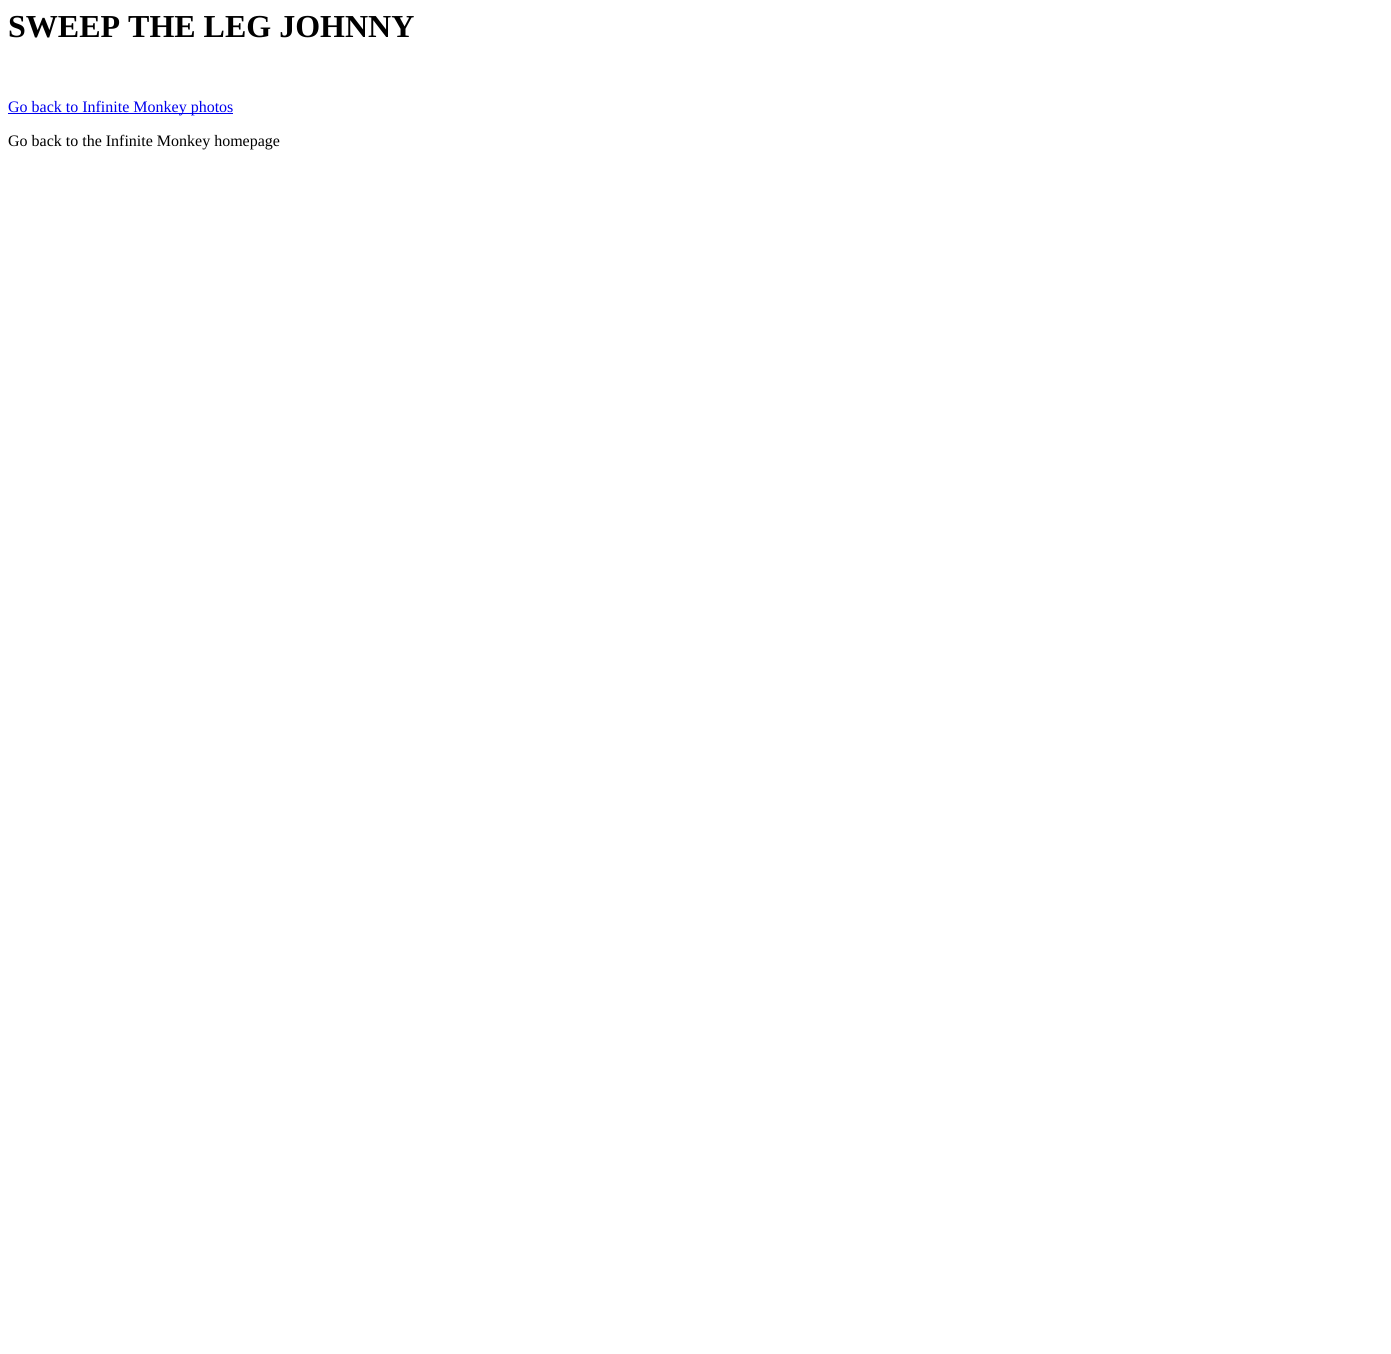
#include <cairo.h>
#include <math.h>
#include <stddef.h>


int main(void) {
    cairo_surface_t *surface = cairo_image_surface_create(CAIRO_FORMAT_RGB24, 1391, 1354);
    cairo_t *cr = cairo_create(surface);
    cairo_font_options_t *options = cairo_font_options_create();
    cairo_font_options_set_hint_metrics(options, CAIRO_HINT_METRICS_OFF);
    cairo_font_options_set_hint_style(options, CAIRO_HINT_STYLE_NONE);
    cairo_set_font_options(cr, options);
    cairo_set_miter_limit(cr, 4);
    cairo_set_source_rgb(cr, 1, 1, 1);
    cairo_paint(cr);
    cairo_select_font_face(cr, "Liberation Serif", CAIRO_FONT_SLANT_NORMAL, CAIRO_FONT_WEIGHT_BOLD);
    cairo_set_font_size(cr, 32);
    cairo_set_source_rgb(cr, 0, 0, 0);
    cairo_move_to(cr, 8, 37);
    cairo_show_text(cr, "SWEEP THE LEG JOHNNY");
    cairo_set_source_rgb(cr, 0, 0, 0.933);
    cairo_rectangle(cr, 8, 113, 225, 1);
    cairo_fill(cr);
    cairo_select_font_face(cr, "Liberation Serif", CAIRO_FONT_SLANT_NORMAL, CAIRO_FONT_WEIGHT_NORMAL);
    cairo_set_font_size(cr, 16);
    cairo_move_to(cr, 8, 112);
    cairo_show_text(cr, "Go back to Infinite Monkey photos");
    cairo_set_source_rgb(cr, 0, 0, 0);
    cairo_move_to(cr, 8, 146);
    cairo_show_text(cr, "Go back to the Infinite Monkey homepage");
    cairo_surface_write_to_png(surface, "page.png");
    cairo_font_options_destroy(options);
    cairo_destroy(cr);
    cairo_surface_destroy(surface);
    return 0;
}
